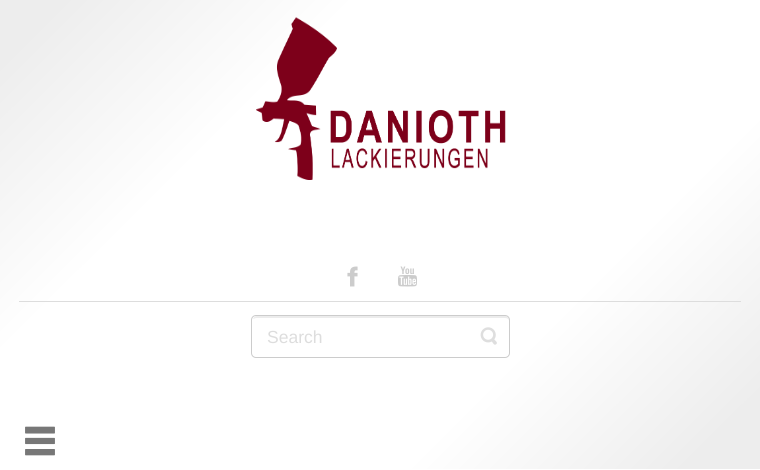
#include <cairo.h>
#include <math.h>
#include <stddef.h>


static void round_rect(cairo_t *cr, double x, double y, double w, double h, double r) {
    cairo_new_sub_path(cr);
    cairo_arc(cr, x + w - r, y + h - r, r, 0, M_PI / 2);
    cairo_arc(cr, x + r, y + h - r, r, M_PI / 2, M_PI);
    cairo_arc(cr, x + r, y + r, r, M_PI, 1.5 * M_PI);
    cairo_arc(cr, x + w - r, y + r, r, 1.5 * M_PI, 2 * M_PI);
    cairo_close_path(cr);
}

static void picture(cairo_t *cr, const char *path, double x, double y, double w, double h) {
    cairo_surface_t *image = cairo_image_surface_create_from_png(path);
    cairo_save(cr);
    cairo_set_source_surface(cr, image, x, y);
    cairo_rectangle(cr, x, y, w, h);
    cairo_fill(cr);
    cairo_restore(cr);
    cairo_surface_destroy(image);
}

int main(void) {
    cairo_surface_t *surface = cairo_image_surface_create(CAIRO_FORMAT_RGB24, 760, 470);
    cairo_t *cr = cairo_create(surface);
    cairo_font_options_t *options = cairo_font_options_create();
    cairo_font_options_set_hint_metrics(options, CAIRO_HINT_METRICS_OFF);
    cairo_font_options_set_hint_style(options, CAIRO_HINT_STYLE_NONE);
    cairo_set_font_options(cr, options);
    cairo_set_miter_limit(cr, 4);
    cairo_pattern_t *gradient;
    cairo_set_source_rgb(cr, 1, 1, 1);
    cairo_paint(cr);
    gradient = cairo_pattern_create_linear(73, -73, 687, 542);
    cairo_pattern_add_color_stop_rgba(gradient, 0.05, 0.929, 0.929, 0.929, 1);
    cairo_pattern_add_color_stop_rgba(gradient, 0.29, 1, 1, 1, 1);
    cairo_pattern_add_color_stop_rgba(gradient, 0.71, 1, 1, 1, 1);
    cairo_pattern_add_color_stop_rgba(gradient, 0.94, 0.929, 0.929, 0.929, 1);
    cairo_set_source(cr, gradient);
    cairo_pattern_destroy(gradient);
    cairo_rectangle(cr, 0, 0, 760, 469);
    cairo_fill(cr);
    picture(cr, "img1.png", 256, 17, 250, 163);
    cairo_set_source_rgb(cr, 0.867, 0.867, 0.867);
    cairo_rectangle(cr, 19, 301, 722, 1);
    cairo_fill(cr);
    picture(cr, "img2.png", 347, 266, 11, 21);
    picture(cr, "img3.png", 398, 266, 19, 21);
    cairo_set_source_rgb(cr, 0.925, 0.925, 0.925);
    cairo_new_path(cr);
    cairo_move_to(cr, 256, 318);
    cairo_line_to(cr, 505, 318);
    cairo_curve_to(cr, 507, 318, 509, 319, 509, 321);
    cairo_line_to(cr, 509, 320);
    cairo_curve_to(cr, 509, 318, 507, 316, 505, 316);
    cairo_line_to(cr, 257, 316);
    cairo_curve_to(cr, 255, 316, 254, 317, 253, 319);
    cairo_close_path(cr);
    cairo_fill(cr);
    round_rect(cr, 251.5, 315.5, 258, 42, 4.5);
    cairo_set_source_rgb(cr, 0.8, 0.8, 0.8);
    cairo_set_line_width(cr, 1);
    cairo_stroke(cr);
    cairo_select_font_face(cr, "Liberation Sans", CAIRO_FONT_SLANT_NORMAL, CAIRO_FONT_WEIGHT_NORMAL);
    cairo_set_font_size(cr, 17.5);
    cairo_set_source_rgb(cr, 0.867, 0.867, 0.867);
    cairo_move_to(cr, 267, 343);
    cairo_show_text(cr, "Search");
    picture(cr, "img4.png", 480, 327, 17, 18);
    picture(cr, "img5.png", 25, 426, 30, 30);
    cairo_surface_write_to_png(surface, "page.png");
    cairo_font_options_destroy(options);
    cairo_destroy(cr);
    cairo_surface_destroy(surface);
    return 0;
}
